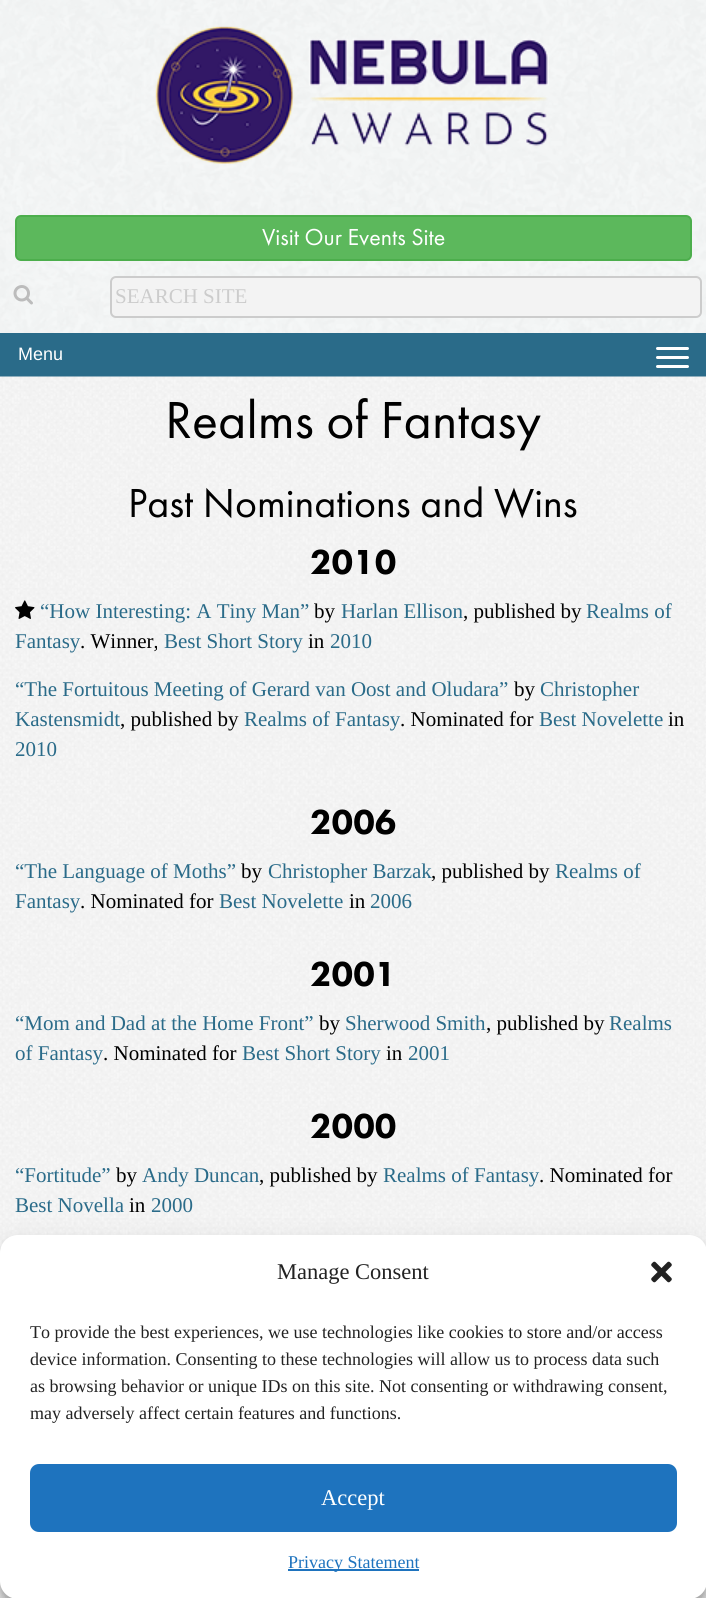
#include <cairo.h>
#include <math.h>
#include <stddef.h>


static void round_rect(cairo_t *cr, double x, double y, double w, double h, double r) {
    cairo_new_sub_path(cr);
    cairo_arc(cr, x + w - r, y + h - r, r, 0, M_PI / 2);
    cairo_arc(cr, x + r, y + h - r, r, M_PI / 2, M_PI);
    cairo_arc(cr, x + r, y + r, r, M_PI, 1.5 * M_PI);
    cairo_arc(cr, x + w - r, y + r, r, 1.5 * M_PI, 2 * M_PI);
    cairo_close_path(cr);
}

static void shadow(cairo_t *cr, double x, double y, double w, double h, double r, double blur, double alpha) {
    cairo_push_group_with_content(cr, CAIRO_CONTENT_ALPHA);
    cairo_set_operator(cr, CAIRO_OPERATOR_SOURCE);
    for (int i = 15; i >= -15 && fmin(w, h) + blur * i / 3 > 0; i -= 2) {
        double e = blur * i / 6;
        cairo_set_source_rgba(cr, 0, 0, 0, alpha * erfc((i - 1) / 8.5) / 2);
        round_rect(cr, x - e, y - e, w + 2 * e, h + 2 * e, fmax(0, fmin(r + e + blur * .6, fmin(w, h) / 2 + e)));
        cairo_fill(cr);
    }
    cairo_pattern_t *soft = cairo_pop_group(cr);
    cairo_mask(cr, soft);
    cairo_pattern_destroy(soft);
}

static void picture(cairo_t *cr, const char *path, double x, double y, double w, double h) {
    cairo_surface_t *image = cairo_image_surface_create_from_png(path);
    cairo_save(cr);
    cairo_set_source_surface(cr, image, x, y);
    cairo_rectangle(cr, x, y, w, h);
    cairo_fill(cr);
    cairo_restore(cr);
    cairo_surface_destroy(image);
}

int main(void) {
    cairo_surface_t *surface = cairo_image_surface_create(CAIRO_FORMAT_RGB24, 706, 1598);
    cairo_t *cr = cairo_create(surface);
    cairo_font_options_t *options = cairo_font_options_create();
    cairo_font_options_set_hint_metrics(options, CAIRO_HINT_METRICS_OFF);
    cairo_font_options_set_hint_style(options, CAIRO_HINT_STYLE_NONE);
    cairo_set_font_options(cr, options);
    cairo_set_miter_limit(cr, 4);
    cairo_set_source_rgb(cr, 1, 1, 1);
    cairo_paint(cr);
    picture(cr, "img1.png", 0, 0, 706, 333);
    picture(cr, "img2.png", 155, 26, 394, 138);
    cairo_set_source_rgb(cr, 0.361, 0.722, 0.361);
    round_rect(cr, 16, 216, 675, 44, 5);
    cairo_fill_preserve(cr);
    cairo_set_source_rgb(cr, 0.298, 0.682, 0.298);
    cairo_stroke(cr);
    cairo_select_font_face(cr, "Futura PT", CAIRO_FONT_SLANT_NORMAL, CAIRO_FONT_WEIGHT_NORMAL);
    cairo_set_font_size(cr, 24);
    cairo_set_source_rgb(cr, 1, 1, 1);
    cairo_move_to(cr, 262, 245);
    cairo_show_text(cr, "Visit Our Events Site");
    picture(cr, "img3.png", 13, 285, 20, 20);
    cairo_set_source_rgb(cr, 0.953, 0.953, 0.953);
    round_rect(cr, 111, 277, 590, 40, 5);
    cairo_fill_preserve(cr);
    cairo_set_source_rgb(cr, 0.8, 0.8, 0.8);
    cairo_stroke(cr);
    cairo_select_font_face(cr, "Liberation Serif", CAIRO_FONT_SLANT_NORMAL, CAIRO_FONT_WEIGHT_NORMAL);
    cairo_set_font_size(cr, 21);
    cairo_move_to(cr, 115, 303);
    cairo_show_text(cr, "SEARCH SITE");
    cairo_set_source_rgb(cr, 0.165, 0.42, 0.537);
    cairo_rectangle(cr, 0, 333, 706, 44);
    cairo_fill(cr);
    cairo_select_font_face(cr, "Liberation Sans", CAIRO_FONT_SLANT_NORMAL, CAIRO_FONT_WEIGHT_NORMAL);
    cairo_set_font_size(cr, 18);
    cairo_set_source_rgb(cr, 1, 1, 1);
    cairo_move_to(cr, 18, 360);
    cairo_show_text(cr, "Menu");
    round_rect(cr, 656, 347, 33, 3, 1.5);
    cairo_fill(cr);
    round_rect(cr, 656, 356, 33, 3, 1.5);
    cairo_fill(cr);
    round_rect(cr, 656, 365, 33, 3, 1.5);
    cairo_fill(cr);
    picture(cr, "img4.png", 0, 376, 706, 1222);
    cairo_select_font_face(cr, "Futura PT", CAIRO_FONT_SLANT_NORMAL, CAIRO_FONT_WEIGHT_NORMAL);
    cairo_set_font_size(cr, 54);
    cairo_set_source_rgb(cr, 0, 0, 0);
    cairo_move_to(cr, 165, 438);
    cairo_show_text(cr, "Realms of Fantasy");
    cairo_set_font_size(cr, 42);
    cairo_move_to(cr, 128, 517);
    cairo_show_text(cr, "Past Nominations and Wins");
    cairo_select_font_face(cr, "Futura PT Black", CAIRO_FONT_SLANT_NORMAL, CAIRO_FONT_WEIGHT_NORMAL);
    cairo_set_font_size(cr, 36);
    cairo_move_to(cr, 310, 574);
    cairo_show_text(cr, "2010");
    picture(cr, "img5.png", 15, 600, 20, 19);
    cairo_select_font_face(cr, "Liberation Serif", CAIRO_FONT_SLANT_NORMAL, CAIRO_FONT_WEIGHT_NORMAL);
    cairo_set_font_size(cr, 21);
    cairo_set_source_rgb(cr, 0.165, 0.42, 0.537);
    cairo_move_to(cr, 40, 618);
    cairo_show_text(cr, "“How Interesting: A Tiny Man”");
    cairo_set_source_rgb(cr, 0, 0, 0);
    cairo_move_to(cr, 314, 618);
    cairo_show_text(cr, "by");
    cairo_set_source_rgb(cr, 0.165, 0.42, 0.537);
    cairo_move_to(cr, 341, 618);
    cairo_show_text(cr, "Harlan Ellison");
    cairo_set_source_rgb(cr, 0, 0, 0);
    cairo_move_to(cr, 463, 618);
    cairo_show_text(cr, ", published by");
    cairo_set_source_rgb(cr, 0.165, 0.42, 0.537);
    cairo_move_to(cr, 586, 618);
    cairo_show_text(cr, "Realms of");
    cairo_move_to(cr, 15, 648);
    cairo_show_text(cr, "Fantasy");
    cairo_set_source_rgb(cr, 0, 0, 0);
    cairo_move_to(cr, 80, 648);
    cairo_show_text(cr, ". Winner,");
    cairo_set_source_rgb(cr, 0.165, 0.42, 0.537);
    cairo_move_to(cr, 164, 648);
    cairo_show_text(cr, "Best Short Story");
    cairo_set_source_rgb(cr, 0, 0, 0);
    cairo_move_to(cr, 308, 648);
    cairo_show_text(cr, "in");
    cairo_set_source_rgb(cr, 0.165, 0.42, 0.537);
    cairo_move_to(cr, 330, 648);
    cairo_show_text(cr, "2010");
    cairo_move_to(cr, 15, 696);
    cairo_show_text(cr, "“The Fortuitous Meeting of Gerard van Oost and Oludara”");
    cairo_set_source_rgb(cr, 0, 0, 0);
    cairo_move_to(cr, 514, 696);
    cairo_show_text(cr, "by");
    cairo_set_source_rgb(cr, 0.165, 0.42, 0.537);
    cairo_move_to(cr, 540, 696);
    cairo_show_text(cr, "Christopher");
    cairo_move_to(cr, 15, 726);
    cairo_show_text(cr, "Kastensmidt");
    cairo_set_source_rgb(cr, 0, 0, 0);
    cairo_move_to(cr, 120, 726);
    cairo_show_text(cr, ", published by");
    cairo_set_source_rgb(cr, 0.165, 0.42, 0.537);
    cairo_move_to(cr, 244, 726);
    cairo_show_text(cr, "Realms of Fantasy");
    cairo_set_source_rgb(cr, 0, 0, 0);
    cairo_move_to(cr, 400, 726);
    cairo_show_text(cr, ". Nominated for");
    cairo_set_source_rgb(cr, 0.165, 0.42, 0.537);
    cairo_move_to(cr, 539, 726);
    cairo_show_text(cr, "Best Novelette");
    cairo_set_source_rgb(cr, 0, 0, 0);
    cairo_move_to(cr, 668, 726);
    cairo_show_text(cr, "in");
    cairo_set_source_rgb(cr, 0.165, 0.42, 0.537);
    cairo_move_to(cr, 15, 756);
    cairo_show_text(cr, "2010");
    cairo_select_font_face(cr, "Futura PT Black", CAIRO_FONT_SLANT_NORMAL, CAIRO_FONT_WEIGHT_NORMAL);
    cairo_set_font_size(cr, 36);
    cairo_set_source_rgb(cr, 0, 0, 0);
    cairo_move_to(cr, 310, 834);
    cairo_show_text(cr, "2006");
    cairo_select_font_face(cr, "Liberation Serif", CAIRO_FONT_SLANT_NORMAL, CAIRO_FONT_WEIGHT_NORMAL);
    cairo_set_font_size(cr, 21);
    cairo_set_source_rgb(cr, 0.165, 0.42, 0.537);
    cairo_move_to(cr, 15, 878);
    cairo_show_text(cr, "“The Language of Moths”");
    cairo_set_source_rgb(cr, 0, 0, 0);
    cairo_move_to(cr, 241, 878);
    cairo_show_text(cr, "by");
    cairo_set_source_rgb(cr, 0.165, 0.42, 0.537);
    cairo_move_to(cr, 268, 878);
    cairo_show_text(cr, "Christopher Barzak");
    cairo_set_source_rgb(cr, 0, 0, 0);
    cairo_move_to(cr, 431, 878);
    cairo_show_text(cr, ", published by");
    cairo_set_source_rgb(cr, 0.165, 0.42, 0.537);
    cairo_move_to(cr, 555, 878);
    cairo_show_text(cr, "Realms of");
    cairo_move_to(cr, 15, 908);
    cairo_show_text(cr, "Fantasy");
    cairo_set_source_rgb(cr, 0, 0, 0);
    cairo_move_to(cr, 80, 908);
    cairo_show_text(cr, ". Nominated for");
    cairo_set_source_rgb(cr, 0.165, 0.42, 0.537);
    cairo_move_to(cr, 219, 908);
    cairo_show_text(cr, "Best Novelette");
    cairo_set_source_rgb(cr, 0, 0, 0);
    cairo_move_to(cr, 349, 908);
    cairo_show_text(cr, "in");
    cairo_set_source_rgb(cr, 0.165, 0.42, 0.537);
    cairo_move_to(cr, 370, 908);
    cairo_show_text(cr, "2006");
    cairo_select_font_face(cr, "Futura PT Black", CAIRO_FONT_SLANT_NORMAL, CAIRO_FONT_WEIGHT_NORMAL);
    cairo_set_font_size(cr, 36);
    cairo_set_source_rgb(cr, 0, 0, 0);
    cairo_move_to(cr, 310, 986);
    cairo_show_text(cr, "2001");
    cairo_select_font_face(cr, "Liberation Serif", CAIRO_FONT_SLANT_NORMAL, CAIRO_FONT_WEIGHT_NORMAL);
    cairo_set_font_size(cr, 21);
    cairo_set_source_rgb(cr, 0.165, 0.42, 0.537);
    cairo_move_to(cr, 15, 1030);
    cairo_show_text(cr, "“Mom and Dad at the Home Front”");
    cairo_set_source_rgb(cr, 0, 0, 0);
    cairo_move_to(cr, 319, 1030);
    cairo_show_text(cr, "by");
    cairo_set_source_rgb(cr, 0.165, 0.42, 0.537);
    cairo_move_to(cr, 345, 1030);
    cairo_show_text(cr, "Sherwood Smith");
    cairo_set_source_rgb(cr, 0, 0, 0);
    cairo_move_to(cr, 486, 1030);
    cairo_show_text(cr, ", published by");
    cairo_set_source_rgb(cr, 0.165, 0.42, 0.537);
    cairo_move_to(cr, 609, 1030);
    cairo_show_text(cr, "Realms");
    cairo_move_to(cr, 15, 1060);
    cairo_show_text(cr, "of Fantasy");
    cairo_set_source_rgb(cr, 0, 0, 0);
    cairo_move_to(cr, 103, 1060);
    cairo_show_text(cr, ". Nominated for");
    cairo_set_source_rgb(cr, 0.165, 0.42, 0.537);
    cairo_move_to(cr, 242, 1060);
    cairo_show_text(cr, "Best Short Story");
    cairo_set_source_rgb(cr, 0, 0, 0);
    cairo_move_to(cr, 386, 1060);
    cairo_show_text(cr, "in");
    cairo_set_source_rgb(cr, 0.165, 0.42, 0.537);
    cairo_move_to(cr, 408, 1060);
    cairo_show_text(cr, "2001");
    cairo_select_font_face(cr, "Futura PT Black", CAIRO_FONT_SLANT_NORMAL, CAIRO_FONT_WEIGHT_NORMAL);
    cairo_set_font_size(cr, 36);
    cairo_set_source_rgb(cr, 0, 0, 0);
    cairo_move_to(cr, 310, 1138);
    cairo_show_text(cr, "2000");
    cairo_select_font_face(cr, "Liberation Serif", CAIRO_FONT_SLANT_NORMAL, CAIRO_FONT_WEIGHT_NORMAL);
    cairo_set_font_size(cr, 21);
    cairo_set_source_rgb(cr, 0.165, 0.42, 0.537);
    cairo_move_to(cr, 15, 1182);
    cairo_show_text(cr, "“Fortitude”");
    cairo_set_source_rgb(cr, 0, 0, 0);
    cairo_move_to(cr, 116, 1182);
    cairo_show_text(cr, "by");
    cairo_set_source_rgb(cr, 0.165, 0.42, 0.537);
    cairo_move_to(cr, 142, 1182);
    cairo_show_text(cr, "Andy Duncan");
    cairo_set_source_rgb(cr, 0, 0, 0);
    cairo_move_to(cr, 259, 1182);
    cairo_show_text(cr, ", published by");
    cairo_set_source_rgb(cr, 0.165, 0.42, 0.537);
    cairo_move_to(cr, 383, 1182);
    cairo_show_text(cr, "Realms of Fantasy");
    cairo_set_source_rgb(cr, 0, 0, 0);
    cairo_move_to(cr, 539, 1182);
    cairo_show_text(cr, ". Nominated for");
    cairo_set_source_rgb(cr, 0.165, 0.42, 0.537);
    cairo_move_to(cr, 15, 1212);
    cairo_show_text(cr, "Best Novella");
    cairo_set_source_rgb(cr, 0, 0, 0);
    cairo_move_to(cr, 129, 1212);
    cairo_show_text(cr, "in");
    cairo_set_source_rgb(cr, 0.165, 0.42, 0.537);
    cairo_move_to(cr, 151, 1212);
    cairo_show_text(cr, "2000");
    cairo_set_source_rgb(cr, 0, 0, 0);
    shadow(cr, 0, 1244, 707, 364, 18, 4.5, 0.23);
    shadow(cr, 0, 1250, 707, 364, 18, 15, 0.19);
    cairo_set_source_rgb(cr, 1, 1, 1);
    round_rect(cr, 0, 1235, 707, 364, 18);
    cairo_fill(cr);
    cairo_set_font_size(cr, 22.5);
    cairo_set_source_rgb(cr, 0.133, 0.133, 0.133);
    cairo_move_to(cr, 277, 1279);
    cairo_show_text(cr, "Manage Consent");
    picture(cr, "img6.png", 651, 1261, 21, 22);
    cairo_set_font_size(cr, 18);
    cairo_move_to(cr, 30, 1338);
    cairo_show_text(cr, "To provide the best experiences, we use technologies like cookies to store and/or access");
    cairo_move_to(cr, 30, 1365);
    cairo_show_text(cr, "device information. Consenting to these technologies will allow us to process data such");
    cairo_move_to(cr, 30, 1392);
    cairo_show_text(cr, "as browsing behavior or unique IDs on this site. Not consenting or withdrawing consent,");
    cairo_move_to(cr, 30, 1419);
    cairo_show_text(cr, "may adversely affect certain features and functions.");
    cairo_set_source_rgb(cr, 0.118, 0.451, 0.745);
    round_rect(cr, 31, 1465, 645, 66, 8);
    cairo_fill_preserve(cr);
    cairo_stroke(cr);
    cairo_set_font_size(cr, 22.5);
    cairo_set_source_rgb(cr, 1, 1, 1);
    cairo_move_to(cr, 321, 1505);
    cairo_show_text(cr, "Accept");
    cairo_set_source_rgb(cr, 0.118, 0.451, 0.745);
    cairo_rectangle(cr, 288, 1569, 131, 2);
    cairo_fill(cr);
    cairo_set_font_size(cr, 18);
    cairo_move_to(cr, 288, 1568);
    cairo_show_text(cr, "Privacy Statement");
    cairo_surface_write_to_png(surface, "page.png");
    cairo_font_options_destroy(options);
    cairo_destroy(cr);
    cairo_surface_destroy(surface);
    return 0;
}
